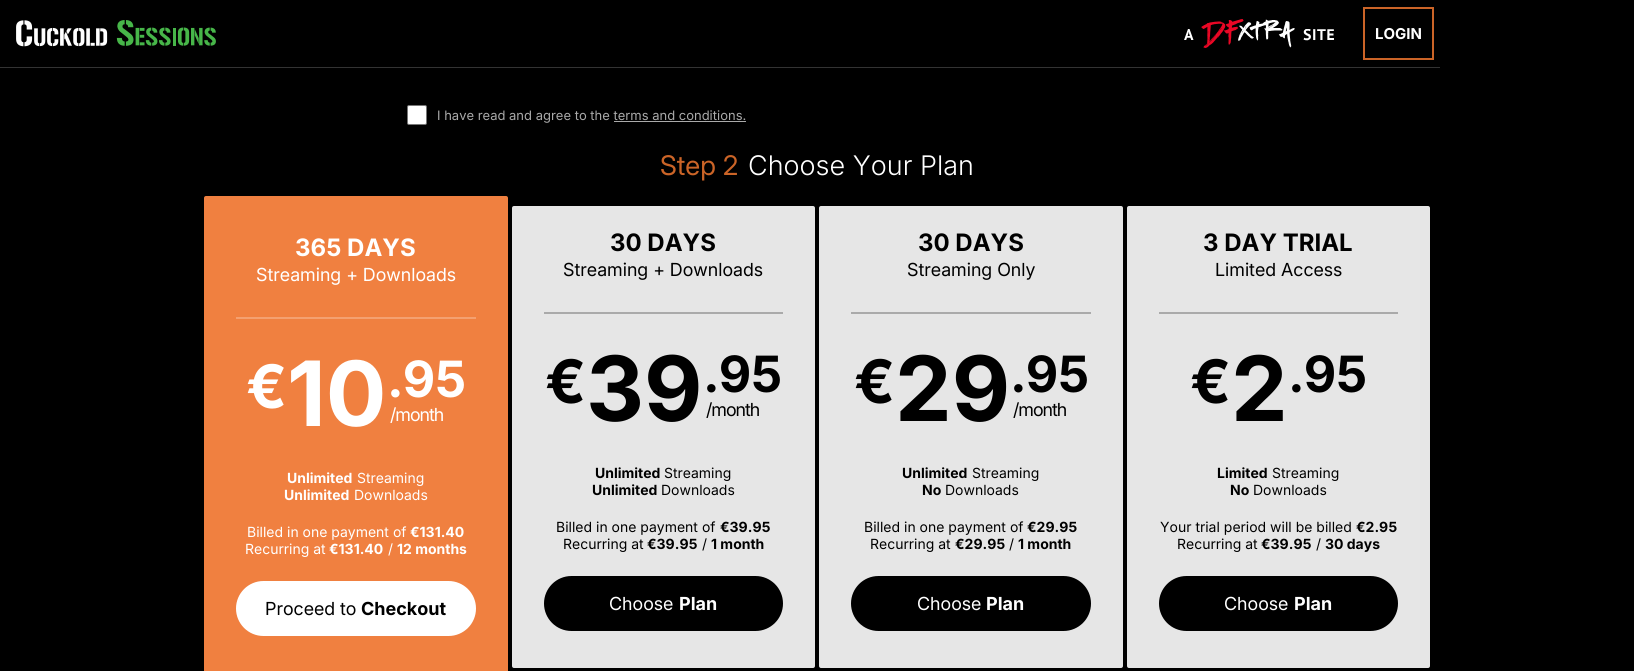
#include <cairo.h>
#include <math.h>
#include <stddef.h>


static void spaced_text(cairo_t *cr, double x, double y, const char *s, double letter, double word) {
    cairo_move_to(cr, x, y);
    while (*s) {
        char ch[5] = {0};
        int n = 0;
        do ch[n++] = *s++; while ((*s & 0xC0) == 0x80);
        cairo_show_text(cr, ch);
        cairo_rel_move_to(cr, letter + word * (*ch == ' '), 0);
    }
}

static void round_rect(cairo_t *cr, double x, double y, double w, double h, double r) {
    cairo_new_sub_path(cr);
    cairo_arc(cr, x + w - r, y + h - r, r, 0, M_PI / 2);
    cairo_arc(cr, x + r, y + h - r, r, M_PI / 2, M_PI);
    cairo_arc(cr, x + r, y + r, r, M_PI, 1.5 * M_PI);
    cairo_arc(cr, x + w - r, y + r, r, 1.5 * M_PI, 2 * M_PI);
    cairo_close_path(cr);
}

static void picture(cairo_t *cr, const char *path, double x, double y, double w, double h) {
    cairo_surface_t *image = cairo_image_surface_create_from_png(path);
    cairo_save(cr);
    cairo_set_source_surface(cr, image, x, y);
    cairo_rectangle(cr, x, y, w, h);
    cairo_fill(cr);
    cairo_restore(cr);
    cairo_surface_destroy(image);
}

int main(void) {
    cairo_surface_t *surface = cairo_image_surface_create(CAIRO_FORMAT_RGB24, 1634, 671);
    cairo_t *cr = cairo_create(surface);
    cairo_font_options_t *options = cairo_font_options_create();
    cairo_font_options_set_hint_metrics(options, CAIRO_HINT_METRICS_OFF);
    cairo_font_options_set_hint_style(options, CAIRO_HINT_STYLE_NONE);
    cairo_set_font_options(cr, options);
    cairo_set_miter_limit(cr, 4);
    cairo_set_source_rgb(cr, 0, 0, 0);
    cairo_paint(cr);
    cairo_set_source_rgb(cr, 0.2, 0.2, 0.2);
    cairo_rectangle(cr, 0, 67, 1440, 1);
    cairo_fill(cr);
    picture(cr, "img1.png", 16, 20, 200, 27);
    picture(cr, "img2.png", 1184, 19, 150, 29);
    cairo_rectangle(cr, 1364, 8, 69, 51);
    cairo_set_source_rgb(cr, 0.796, 0.392, 0.153);
    cairo_stroke(cr);
    cairo_select_font_face(cr, "Inter", CAIRO_FONT_SLANT_NORMAL, CAIRO_FONT_WEIGHT_BOLD);
    cairo_set_font_size(cr, 15);
    cairo_set_source_rgb(cr, 1, 1, 1);
    cairo_move_to(cr, 1375, 39);
    cairo_show_text(cr, "LOGIN");
    round_rect(cr, 407.5, 105.5, 19, 19, 1.5);
    cairo_fill_preserve(cr);
    cairo_set_source_rgb(cr, 0.463, 0.463, 0.463);
    cairo_set_line_width(cr, 1);
    cairo_stroke(cr);
    cairo_select_font_face(cr, "Inter", CAIRO_FONT_SLANT_NORMAL, CAIRO_FONT_WEIGHT_NORMAL);
    cairo_set_font_size(cr, 13);
    cairo_set_source_rgb(cr, 0.667, 0.667, 0.667);
    cairo_move_to(cr, 437, 120);
    cairo_show_text(cr, "I have read and agree to the terms and conditions.");
    cairo_rectangle(cr, 614, 121, 132, 1);
    cairo_fill(cr);
    cairo_select_font_face(cr, "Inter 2", CAIRO_FONT_SLANT_NORMAL, CAIRO_FONT_WEIGHT_NORMAL);
    cairo_set_font_size(cr, 27);
    cairo_set_source_rgb(cr, 0.796, 0.392, 0.153);
    cairo_move_to(cr, 660, 175);
    cairo_show_text(cr, "Step 2");
    cairo_select_font_face(cr, "Inter Light", CAIRO_FONT_SLANT_NORMAL, CAIRO_FONT_WEIGHT_NORMAL);
    cairo_set_source_rgb(cr, 1, 1, 1);
    cairo_move_to(cr, 748, 175);
    cairo_show_text(cr, "Choose Your Plan");
    cairo_set_source_rgb(cr, 0.941, 0.502, 0.251);
    round_rect(cr, 204, 196, 304, 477, 2);
    cairo_fill(cr);
    cairo_select_font_face(cr, "Inter", CAIRO_FONT_SLANT_NORMAL, CAIRO_FONT_WEIGHT_BOLD);
    cairo_set_font_size(cr, 24);
    cairo_set_source_rgb(cr, 1, 1, 1);
    cairo_move_to(cr, 295, 256);
    cairo_show_text(cr, "365 DAYS");
    cairo_set_source_rgb(cr, 0.957, 0.627, 0.439);
    cairo_rectangle(cr, 236, 317, 240, 2);
    cairo_fill(cr);
    cairo_select_font_face(cr, "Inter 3", CAIRO_FONT_SLANT_NORMAL, CAIRO_FONT_WEIGHT_NORMAL);
    cairo_set_font_size(cr, 18);
    cairo_set_source_rgb(cr, 1, 1, 1);
    cairo_move_to(cr, 256, 281);
    cairo_show_text(cr, "Streaming + Downloads");
    cairo_select_font_face(cr, "Inter", CAIRO_FONT_SLANT_NORMAL, CAIRO_FONT_WEIGHT_BOLD);
    cairo_set_font_size(cr, 60);
    cairo_move_to(cr, 246, 408);
    cairo_show_text(cr, "€");
    cairo_set_font_size(cr, 90);
    cairo_move_to(cr, 287, 426);
    cairo_show_text(cr, "10");
    cairo_set_font_size(cr, 50);
    spaced_text(cr, 387, 397, ".95", -1, 0);
    cairo_select_font_face(cr, "Inter 3", CAIRO_FONT_SLANT_NORMAL, CAIRO_FONT_WEIGHT_NORMAL);
    cairo_set_font_size(cr, 18);
    spaced_text(cr, 390, 421, "/month", -1, 0);
    cairo_select_font_face(cr, "Inter", CAIRO_FONT_SLANT_NORMAL, CAIRO_FONT_WEIGHT_BOLD);
    cairo_set_font_size(cr, 14);
    cairo_move_to(cr, 287, 483);
    cairo_show_text(cr, "Unlimited");
    cairo_select_font_face(cr, "Inter", CAIRO_FONT_SLANT_NORMAL, CAIRO_FONT_WEIGHT_NORMAL);
    cairo_move_to(cr, 357, 483);
    cairo_show_text(cr, "Streaming");
    cairo_select_font_face(cr, "Inter", CAIRO_FONT_SLANT_NORMAL, CAIRO_FONT_WEIGHT_BOLD);
    cairo_move_to(cr, 284, 500);
    cairo_show_text(cr, "Unlimited");
    cairo_select_font_face(cr, "Inter", CAIRO_FONT_SLANT_NORMAL, CAIRO_FONT_WEIGHT_NORMAL);
    cairo_move_to(cr, 354, 500);
    cairo_show_text(cr, "Downloads");
    cairo_move_to(cr, 247, 537);
    cairo_show_text(cr, "Billed in one payment of");
    cairo_select_font_face(cr, "Inter", CAIRO_FONT_SLANT_NORMAL, CAIRO_FONT_WEIGHT_BOLD);
    cairo_move_to(cr, 410, 537);
    cairo_show_text(cr, "€131.40");
    cairo_select_font_face(cr, "Inter", CAIRO_FONT_SLANT_NORMAL, CAIRO_FONT_WEIGHT_NORMAL);
    cairo_move_to(cr, 245, 554);
    cairo_show_text(cr, "Recurring at");
    cairo_select_font_face(cr, "Inter", CAIRO_FONT_SLANT_NORMAL, CAIRO_FONT_WEIGHT_BOLD);
    cairo_move_to(cr, 329, 554);
    cairo_show_text(cr, "€131.40");
    cairo_select_font_face(cr, "Inter", CAIRO_FONT_SLANT_NORMAL, CAIRO_FONT_WEIGHT_NORMAL);
    cairo_move_to(cr, 388, 554);
    cairo_show_text(cr, "/");
    cairo_select_font_face(cr, "Inter", CAIRO_FONT_SLANT_NORMAL, CAIRO_FONT_WEIGHT_BOLD);
    cairo_move_to(cr, 397, 554);
    cairo_show_text(cr, "12 months");
    round_rect(cr, 236, 581, 240, 55, 27.5);
    cairo_fill(cr);
    cairo_select_font_face(cr, "Inter 3", CAIRO_FONT_SLANT_NORMAL, CAIRO_FONT_WEIGHT_NORMAL);
    cairo_set_font_size(cr, 18);
    cairo_set_source_rgb(cr, 0, 0, 0);
    cairo_move_to(cr, 265, 615);
    cairo_show_text(cr, "Proceed to");
    cairo_select_font_face(cr, "Inter", CAIRO_FONT_SLANT_NORMAL, CAIRO_FONT_WEIGHT_BOLD);
    cairo_move_to(cr, 361, 615);
    cairo_show_text(cr, "Checkout");
    cairo_set_source_rgb(cr, 0.902, 0.902, 0.902);
    round_rect(cr, 512, 206, 303, 462, 2);
    cairo_fill(cr);
    cairo_set_font_size(cr, 24);
    cairo_set_source_rgb(cr, 0, 0, 0);
    cairo_move_to(cr, 610, 251);
    cairo_show_text(cr, "30 DAYS");
    cairo_set_source_rgb(cr, 0.667, 0.667, 0.667);
    cairo_rectangle(cr, 544, 312, 239, 2);
    cairo_fill(cr);
    cairo_select_font_face(cr, "Inter 3", CAIRO_FONT_SLANT_NORMAL, CAIRO_FONT_WEIGHT_NORMAL);
    cairo_set_font_size(cr, 18);
    cairo_set_source_rgb(cr, 0, 0, 0);
    cairo_move_to(cr, 563, 276);
    cairo_show_text(cr, "Streaming + Downloads");
    cairo_select_font_face(cr, "Inter", CAIRO_FONT_SLANT_NORMAL, CAIRO_FONT_WEIGHT_BOLD);
    cairo_set_font_size(cr, 60);
    cairo_move_to(cr, 545, 403);
    cairo_show_text(cr, "€");
    cairo_set_font_size(cr, 90);
    cairo_move_to(cr, 586, 421);
    cairo_show_text(cr, "39");
    cairo_set_font_size(cr, 50);
    spaced_text(cr, 703, 392, ".95", -1, 0);
    cairo_select_font_face(cr, "Inter 3", CAIRO_FONT_SLANT_NORMAL, CAIRO_FONT_WEIGHT_NORMAL);
    cairo_set_font_size(cr, 18);
    spaced_text(cr, 706, 416, "/month", -1, 0);
    cairo_select_font_face(cr, "Inter", CAIRO_FONT_SLANT_NORMAL, CAIRO_FONT_WEIGHT_BOLD);
    cairo_set_font_size(cr, 14);
    cairo_move_to(cr, 595, 478);
    cairo_show_text(cr, "Unlimited");
    cairo_select_font_face(cr, "Inter", CAIRO_FONT_SLANT_NORMAL, CAIRO_FONT_WEIGHT_NORMAL);
    cairo_move_to(cr, 664, 478);
    cairo_show_text(cr, "Streaming");
    cairo_select_font_face(cr, "Inter", CAIRO_FONT_SLANT_NORMAL, CAIRO_FONT_WEIGHT_BOLD);
    cairo_move_to(cr, 592, 495);
    cairo_show_text(cr, "Unlimited");
    cairo_select_font_face(cr, "Inter", CAIRO_FONT_SLANT_NORMAL, CAIRO_FONT_WEIGHT_NORMAL);
    cairo_move_to(cr, 661, 495);
    cairo_show_text(cr, "Downloads");
    cairo_move_to(cr, 556, 532);
    cairo_show_text(cr, "Billed in one payment of");
    cairo_select_font_face(cr, "Inter", CAIRO_FONT_SLANT_NORMAL, CAIRO_FONT_WEIGHT_BOLD);
    cairo_move_to(cr, 720, 532);
    cairo_show_text(cr, "€39.95");
    cairo_select_font_face(cr, "Inter", CAIRO_FONT_SLANT_NORMAL, CAIRO_FONT_WEIGHT_NORMAL);
    cairo_move_to(cr, 563, 549);
    cairo_show_text(cr, "Recurring at");
    cairo_select_font_face(cr, "Inter", CAIRO_FONT_SLANT_NORMAL, CAIRO_FONT_WEIGHT_BOLD);
    cairo_move_to(cr, 647, 549);
    cairo_show_text(cr, "€39.95");
    cairo_select_font_face(cr, "Inter", CAIRO_FONT_SLANT_NORMAL, CAIRO_FONT_WEIGHT_NORMAL);
    cairo_move_to(cr, 702, 549);
    cairo_show_text(cr, "/");
    cairo_select_font_face(cr, "Inter", CAIRO_FONT_SLANT_NORMAL, CAIRO_FONT_WEIGHT_BOLD);
    cairo_move_to(cr, 711, 549);
    cairo_show_text(cr, "1 month");
    round_rect(cr, 544, 576, 239, 55, 27.5);
    cairo_fill(cr);
    cairo_select_font_face(cr, "Inter 3", CAIRO_FONT_SLANT_NORMAL, CAIRO_FONT_WEIGHT_NORMAL);
    cairo_set_font_size(cr, 18);
    cairo_set_source_rgb(cr, 1, 1, 1);
    cairo_move_to(cr, 609, 610);
    cairo_show_text(cr, "Choose");
    cairo_select_font_face(cr, "Inter", CAIRO_FONT_SLANT_NORMAL, CAIRO_FONT_WEIGHT_BOLD);
    cairo_move_to(cr, 679, 610);
    cairo_show_text(cr, "Plan");
    cairo_set_source_rgb(cr, 0.902, 0.902, 0.902);
    round_rect(cr, 819, 206, 304, 462, 2);
    cairo_fill(cr);
    cairo_set_font_size(cr, 24);
    cairo_set_source_rgb(cr, 0, 0, 0);
    cairo_move_to(cr, 918, 251);
    cairo_show_text(cr, "30 DAYS");
    cairo_set_source_rgb(cr, 0.667, 0.667, 0.667);
    cairo_rectangle(cr, 851, 312, 240, 2);
    cairo_fill(cr);
    cairo_select_font_face(cr, "Inter 3", CAIRO_FONT_SLANT_NORMAL, CAIRO_FONT_WEIGHT_NORMAL);
    cairo_set_font_size(cr, 18);
    cairo_set_source_rgb(cr, 0, 0, 0);
    cairo_move_to(cr, 907, 276);
    cairo_show_text(cr, "Streaming Only");
    cairo_select_font_face(cr, "Inter", CAIRO_FONT_SLANT_NORMAL, CAIRO_FONT_WEIGHT_BOLD);
    cairo_set_font_size(cr, 60);
    cairo_move_to(cr, 854, 403);
    cairo_show_text(cr, "€");
    cairo_set_font_size(cr, 90);
    cairo_move_to(cr, 895, 421);
    cairo_show_text(cr, "29");
    cairo_set_font_size(cr, 50);
    spaced_text(cr, 1010, 392, ".95", -1, 0);
    cairo_select_font_face(cr, "Inter 3", CAIRO_FONT_SLANT_NORMAL, CAIRO_FONT_WEIGHT_NORMAL);
    cairo_set_font_size(cr, 18);
    spaced_text(cr, 1013, 416, "/month", -1, 0);
    cairo_select_font_face(cr, "Inter", CAIRO_FONT_SLANT_NORMAL, CAIRO_FONT_WEIGHT_BOLD);
    cairo_set_font_size(cr, 14);
    cairo_move_to(cr, 902, 478);
    cairo_show_text(cr, "Unlimited");
    cairo_select_font_face(cr, "Inter", CAIRO_FONT_SLANT_NORMAL, CAIRO_FONT_WEIGHT_NORMAL);
    cairo_move_to(cr, 972, 478);
    cairo_show_text(cr, "Streaming");
    cairo_select_font_face(cr, "Inter", CAIRO_FONT_SLANT_NORMAL, CAIRO_FONT_WEIGHT_BOLD);
    cairo_move_to(cr, 922, 495);
    cairo_show_text(cr, "No");
    cairo_select_font_face(cr, "Inter", CAIRO_FONT_SLANT_NORMAL, CAIRO_FONT_WEIGHT_NORMAL);
    cairo_move_to(cr, 945, 495);
    cairo_show_text(cr, "Downloads");
    cairo_move_to(cr, 864, 532);
    cairo_show_text(cr, "Billed in one payment of");
    cairo_select_font_face(cr, "Inter", CAIRO_FONT_SLANT_NORMAL, CAIRO_FONT_WEIGHT_BOLD);
    cairo_move_to(cr, 1027, 532);
    cairo_show_text(cr, "€29.95");
    cairo_select_font_face(cr, "Inter", CAIRO_FONT_SLANT_NORMAL, CAIRO_FONT_WEIGHT_NORMAL);
    cairo_move_to(cr, 870, 549);
    cairo_show_text(cr, "Recurring at");
    cairo_select_font_face(cr, "Inter", CAIRO_FONT_SLANT_NORMAL, CAIRO_FONT_WEIGHT_BOLD);
    cairo_move_to(cr, 955, 549);
    cairo_show_text(cr, "€29.95");
    cairo_select_font_face(cr, "Inter", CAIRO_FONT_SLANT_NORMAL, CAIRO_FONT_WEIGHT_NORMAL);
    cairo_move_to(cr, 1009, 549);
    cairo_show_text(cr, "/");
    cairo_select_font_face(cr, "Inter", CAIRO_FONT_SLANT_NORMAL, CAIRO_FONT_WEIGHT_BOLD);
    cairo_move_to(cr, 1018, 549);
    cairo_show_text(cr, "1 month");
    round_rect(cr, 851, 576, 240, 55, 27.5);
    cairo_fill(cr);
    cairo_select_font_face(cr, "Inter 3", CAIRO_FONT_SLANT_NORMAL, CAIRO_FONT_WEIGHT_NORMAL);
    cairo_set_font_size(cr, 18);
    cairo_set_source_rgb(cr, 1, 1, 1);
    cairo_move_to(cr, 917, 610);
    cairo_show_text(cr, "Choose");
    cairo_select_font_face(cr, "Inter", CAIRO_FONT_SLANT_NORMAL, CAIRO_FONT_WEIGHT_BOLD);
    cairo_move_to(cr, 986, 610);
    cairo_show_text(cr, "Plan");
    cairo_set_source_rgb(cr, 0.902, 0.902, 0.902);
    round_rect(cr, 1127, 206, 303, 462, 2);
    cairo_fill(cr);
    cairo_set_font_size(cr, 24);
    cairo_set_source_rgb(cr, 0, 0, 0);
    cairo_move_to(cr, 1203, 251);
    cairo_show_text(cr, "3 DAY TRIAL");
    cairo_set_source_rgb(cr, 0.667, 0.667, 0.667);
    cairo_rectangle(cr, 1159, 312, 239, 2);
    cairo_fill(cr);
    cairo_select_font_face(cr, "Inter 3", CAIRO_FONT_SLANT_NORMAL, CAIRO_FONT_WEIGHT_NORMAL);
    cairo_set_font_size(cr, 18);
    cairo_set_source_rgb(cr, 0, 0, 0);
    cairo_move_to(cr, 1215, 276);
    cairo_show_text(cr, "Limited Access");
    cairo_select_font_face(cr, "Inter", CAIRO_FONT_SLANT_NORMAL, CAIRO_FONT_WEIGHT_BOLD);
    cairo_set_font_size(cr, 60);
    cairo_move_to(cr, 1190, 403);
    cairo_show_text(cr, "€");
    cairo_set_font_size(cr, 90);
    cairo_move_to(cr, 1231, 421);
    cairo_show_text(cr, "2");
    cairo_set_font_size(cr, 50);
    spaced_text(cr, 1288, 392, ".95", -1, 0);
    cairo_set_font_size(cr, 14);
    cairo_move_to(cr, 1217, 478);
    cairo_show_text(cr, "Limited");
    cairo_select_font_face(cr, "Inter", CAIRO_FONT_SLANT_NORMAL, CAIRO_FONT_WEIGHT_NORMAL);
    cairo_move_to(cr, 1272, 478);
    cairo_show_text(cr, "Streaming");
    cairo_select_font_face(cr, "Inter", CAIRO_FONT_SLANT_NORMAL, CAIRO_FONT_WEIGHT_BOLD);
    cairo_move_to(cr, 1230, 495);
    cairo_show_text(cr, "No");
    cairo_select_font_face(cr, "Inter", CAIRO_FONT_SLANT_NORMAL, CAIRO_FONT_WEIGHT_NORMAL);
    cairo_move_to(cr, 1253, 495);
    cairo_show_text(cr, "Downloads");
    cairo_move_to(cr, 1160, 532);
    cairo_show_text(cr, "Your trial period will be billed");
    cairo_select_font_face(cr, "Inter", CAIRO_FONT_SLANT_NORMAL, CAIRO_FONT_WEIGHT_BOLD);
    cairo_move_to(cr, 1356, 532);
    cairo_show_text(cr, "€2.95");
    cairo_select_font_face(cr, "Inter", CAIRO_FONT_SLANT_NORMAL, CAIRO_FONT_WEIGHT_NORMAL);
    cairo_move_to(cr, 1177, 549);
    cairo_show_text(cr, "Recurring at");
    cairo_select_font_face(cr, "Inter", CAIRO_FONT_SLANT_NORMAL, CAIRO_FONT_WEIGHT_BOLD);
    cairo_move_to(cr, 1261, 549);
    cairo_show_text(cr, "€39.95");
    cairo_select_font_face(cr, "Inter", CAIRO_FONT_SLANT_NORMAL, CAIRO_FONT_WEIGHT_NORMAL);
    cairo_move_to(cr, 1316, 549);
    cairo_show_text(cr, "/");
    cairo_select_font_face(cr, "Inter", CAIRO_FONT_SLANT_NORMAL, CAIRO_FONT_WEIGHT_BOLD);
    cairo_move_to(cr, 1325, 549);
    cairo_show_text(cr, "30 days");
    round_rect(cr, 1159, 576, 239, 55, 27.5);
    cairo_fill(cr);
    cairo_select_font_face(cr, "Inter 3", CAIRO_FONT_SLANT_NORMAL, CAIRO_FONT_WEIGHT_NORMAL);
    cairo_set_font_size(cr, 18);
    cairo_set_source_rgb(cr, 1, 1, 1);
    cairo_move_to(cr, 1224, 610);
    cairo_show_text(cr, "Choose");
    cairo_select_font_face(cr, "Inter", CAIRO_FONT_SLANT_NORMAL, CAIRO_FONT_WEIGHT_BOLD);
    cairo_move_to(cr, 1294, 610);
    cairo_show_text(cr, "Plan");
    cairo_surface_write_to_png(surface, "page.png");
    cairo_font_options_destroy(options);
    cairo_destroy(cr);
    cairo_surface_destroy(surface);
    return 0;
}
